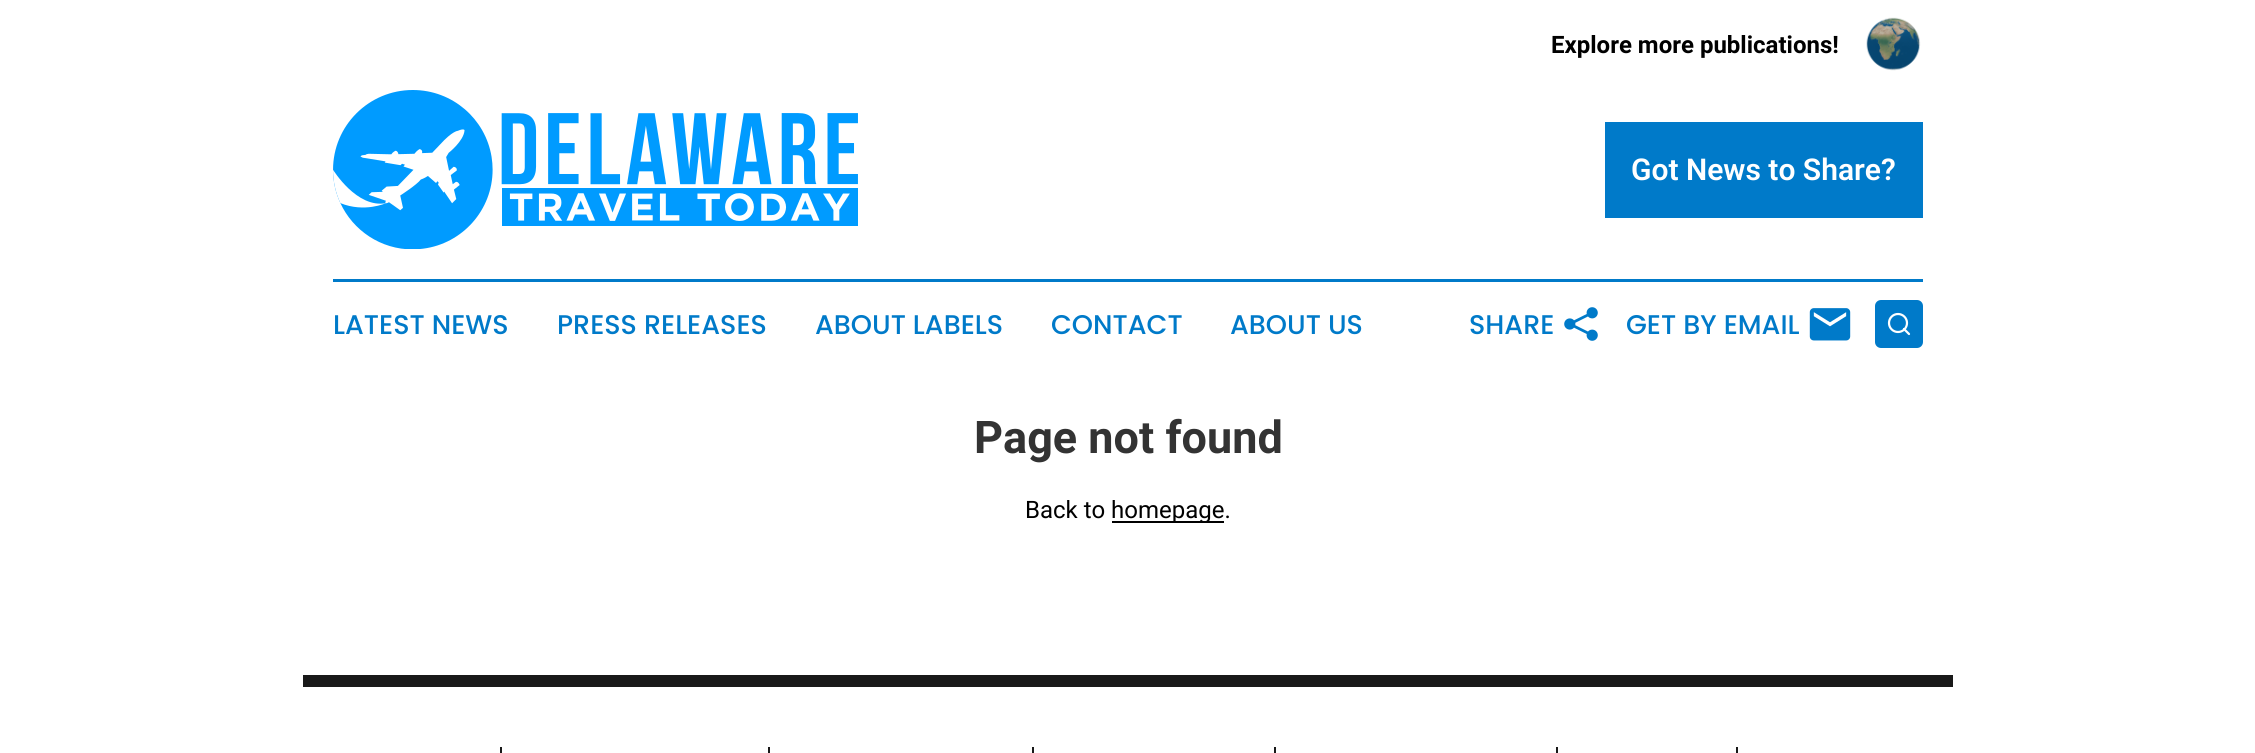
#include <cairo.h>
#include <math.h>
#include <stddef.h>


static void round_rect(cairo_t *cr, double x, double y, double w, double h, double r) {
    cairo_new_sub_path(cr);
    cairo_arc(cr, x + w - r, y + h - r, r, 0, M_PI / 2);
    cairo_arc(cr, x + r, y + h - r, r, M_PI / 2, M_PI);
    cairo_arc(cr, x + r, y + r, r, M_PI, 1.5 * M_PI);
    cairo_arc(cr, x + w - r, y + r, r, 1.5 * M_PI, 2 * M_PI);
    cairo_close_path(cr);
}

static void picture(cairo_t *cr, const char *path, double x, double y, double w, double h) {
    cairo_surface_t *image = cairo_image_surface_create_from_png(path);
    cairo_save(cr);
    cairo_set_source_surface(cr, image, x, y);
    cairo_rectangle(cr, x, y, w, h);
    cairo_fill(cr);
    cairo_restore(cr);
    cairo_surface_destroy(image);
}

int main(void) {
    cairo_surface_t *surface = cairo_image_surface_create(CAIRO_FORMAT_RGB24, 2255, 753);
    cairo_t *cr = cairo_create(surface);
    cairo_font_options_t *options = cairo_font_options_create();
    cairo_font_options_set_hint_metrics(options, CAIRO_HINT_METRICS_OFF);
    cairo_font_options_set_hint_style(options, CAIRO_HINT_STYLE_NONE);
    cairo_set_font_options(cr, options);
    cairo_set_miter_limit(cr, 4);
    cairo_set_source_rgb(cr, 1, 1, 1);
    cairo_paint(cr);
    cairo_select_font_face(cr, "Roboto", CAIRO_FONT_SLANT_NORMAL, CAIRO_FONT_WEIGHT_BOLD);
    cairo_set_font_size(cr, 24);
    cairo_set_source_rgb(cr, 0, 0, 0);
    cairo_move_to(cr, 1551, 53);
    cairo_show_text(cr, "Explore more publications!");
    picture(cr, "img1.png", 1866, 17, 55, 54);
    picture(cr, "img2.png", 333, 90, 525, 159);
    cairo_set_source_rgb(cr, 0, 0.478, 0.788);
    cairo_rectangle(cr, 1605, 122, 318, 96);
    cairo_fill(cr);
    cairo_select_font_face(cr, "Roboto SemiBold", CAIRO_FONT_SLANT_NORMAL, CAIRO_FONT_WEIGHT_NORMAL);
    cairo_set_font_size(cr, 30);
    cairo_set_source_rgb(cr, 1, 1, 1);
    cairo_move_to(cr, 1631, 180);
    cairo_show_text(cr, "Got News to Share?");
    cairo_set_source_rgb(cr, 0, 0.478, 0.788);
    cairo_rectangle(cr, 333, 279, 1590, 3);
    cairo_fill(cr);
    cairo_select_font_face(cr, "Poppins Medium", CAIRO_FONT_SLANT_NORMAL, CAIRO_FONT_WEIGHT_NORMAL);
    cairo_set_font_size(cr, 27);
    cairo_move_to(cr, 333, 334);
    cairo_show_text(cr, "LATEST NEWS");
    cairo_move_to(cr, 557, 334);
    cairo_show_text(cr, "PRESS RELEASES");
    cairo_move_to(cr, 815, 334);
    cairo_show_text(cr, "ABOUT LABELS");
    cairo_move_to(cr, 1051, 334);
    cairo_show_text(cr, "CONTACT");
    cairo_move_to(cr, 1230, 334);
    cairo_show_text(cr, "ABOUT US");
    cairo_move_to(cr, 1469, 334);
    cairo_show_text(cr, "SHARE");
    picture(cr, "img3.png", 1564, 307, 34, 34);
    cairo_move_to(cr, 1626, 334);
    cairo_show_text(cr, "GET BY EMAIL");
    picture(cr, "img4.png", 1809, 308, 42, 33);
    round_rect(cr, 1875, 300, 48, 48, 6);
    cairo_fill(cr);
    cairo_arc(cr, 1898, 323, 9, 0, 2 * M_PI);
    cairo_set_source_rgb(cr, 1, 1, 1);
    cairo_set_line_width(cr, 2.2);
    cairo_stroke(cr);
    cairo_new_path(cr);
    cairo_move_to(cr, 1909, 334);
    cairo_line_to(cr, 1904, 329);
    cairo_set_line_cap(cr, CAIRO_LINE_CAP_ROUND);
    cairo_set_line_join(cr, CAIRO_LINE_JOIN_ROUND);
    cairo_stroke(cr);
    cairo_select_font_face(cr, "Roboto", CAIRO_FONT_SLANT_NORMAL, CAIRO_FONT_WEIGHT_BOLD);
    cairo_set_font_size(cr, 45);
    cairo_set_source_rgb(cr, 0.2, 0.2, 0.2);
    cairo_move_to(cr, 974, 453);
    cairo_show_text(cr, "Page not found");
    cairo_select_font_face(cr, "Roboto", CAIRO_FONT_SLANT_NORMAL, CAIRO_FONT_WEIGHT_NORMAL);
    cairo_set_font_size(cr, 24);
    cairo_set_source_rgb(cr, 0, 0, 0);
    cairo_move_to(cr, 1025, 518);
    cairo_show_text(cr, "Back to");
    cairo_rectangle(cr, 1112, 521, 112, 2);
    cairo_fill(cr);
    cairo_move_to(cr, 1111, 518);
    cairo_show_text(cr, "homepage.");
    cairo_set_source_rgb(cr, 0.098, 0.098, 0.098);
    cairo_rectangle(cr, 303, 675, 1650, 12);
    cairo_fill(cr);
    cairo_rectangle(cr, 500, 747, 2, 6);
    cairo_fill(cr);
    cairo_rectangle(cr, 768, 747, 2, 6);
    cairo_fill(cr);
    cairo_rectangle(cr, 1032, 747, 2, 6);
    cairo_fill(cr);
    cairo_rectangle(cr, 1274, 747, 2, 6);
    cairo_fill(cr);
    cairo_rectangle(cr, 1556, 747, 2, 6);
    cairo_fill(cr);
    cairo_rectangle(cr, 1736, 747, 2, 6);
    cairo_fill(cr);
    cairo_surface_write_to_png(surface, "page.png");
    cairo_font_options_destroy(options);
    cairo_destroy(cr);
    cairo_surface_destroy(surface);
    return 0;
}
